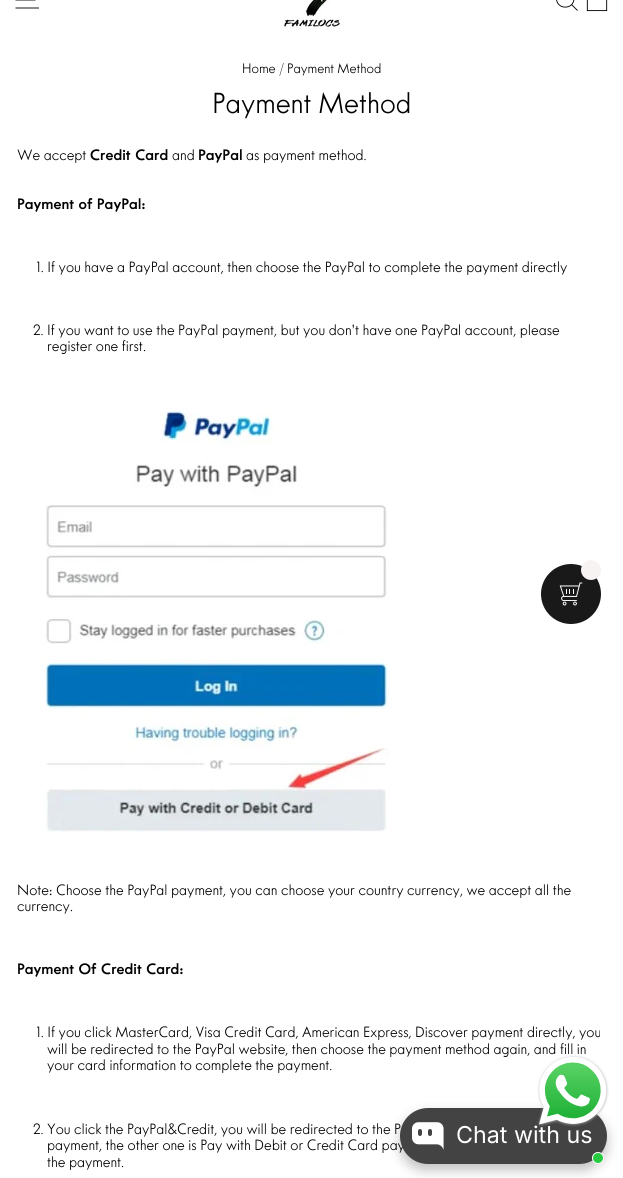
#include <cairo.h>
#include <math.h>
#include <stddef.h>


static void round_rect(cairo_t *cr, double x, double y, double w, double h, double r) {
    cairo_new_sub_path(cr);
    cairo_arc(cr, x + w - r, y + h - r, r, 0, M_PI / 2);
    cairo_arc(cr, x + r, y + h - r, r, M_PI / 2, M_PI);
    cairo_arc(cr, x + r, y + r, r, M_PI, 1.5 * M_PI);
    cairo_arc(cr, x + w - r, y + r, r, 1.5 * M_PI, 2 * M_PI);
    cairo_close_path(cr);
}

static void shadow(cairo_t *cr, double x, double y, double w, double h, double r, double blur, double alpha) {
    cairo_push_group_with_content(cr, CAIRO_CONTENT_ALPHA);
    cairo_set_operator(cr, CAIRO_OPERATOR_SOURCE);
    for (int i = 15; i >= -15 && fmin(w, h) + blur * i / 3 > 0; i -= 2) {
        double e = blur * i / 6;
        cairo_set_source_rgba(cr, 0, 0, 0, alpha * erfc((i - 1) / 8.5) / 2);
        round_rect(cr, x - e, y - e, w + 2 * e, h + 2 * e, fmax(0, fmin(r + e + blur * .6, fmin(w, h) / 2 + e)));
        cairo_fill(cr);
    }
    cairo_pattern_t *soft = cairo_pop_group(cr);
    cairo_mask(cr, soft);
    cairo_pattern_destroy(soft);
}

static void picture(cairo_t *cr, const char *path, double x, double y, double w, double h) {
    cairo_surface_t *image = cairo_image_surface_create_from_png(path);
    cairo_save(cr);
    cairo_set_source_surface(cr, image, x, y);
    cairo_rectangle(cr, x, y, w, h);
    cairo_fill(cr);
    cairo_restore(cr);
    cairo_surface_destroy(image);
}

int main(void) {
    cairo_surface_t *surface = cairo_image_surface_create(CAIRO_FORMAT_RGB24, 623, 1178);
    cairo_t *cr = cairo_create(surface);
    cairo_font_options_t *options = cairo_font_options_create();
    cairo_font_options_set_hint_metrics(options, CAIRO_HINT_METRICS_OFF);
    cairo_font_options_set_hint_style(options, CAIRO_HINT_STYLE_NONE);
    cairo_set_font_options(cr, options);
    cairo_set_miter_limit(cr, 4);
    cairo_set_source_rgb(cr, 1, 1, 1);
    cairo_paint(cr);
    cairo_new_path(cr);
    cairo_move_to(cr, 15.5, -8);
    cairo_line_to(cr, 39, -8);
    cairo_move_to(cr, 15.5, 0);
    cairo_line_to(cr, 35.5, 0);
    cairo_move_to(cr, 15.5, 8);
    cairo_line_to(cr, 39, 8);
    cairo_set_source_rgb(cr, 0, 0, 0);
    cairo_set_line_width(cr, 0.9);
    cairo_stroke(cr);
    picture(cr, "img1.png", 282, 0, 60, 30);
    cairo_new_path(cr);
    cairo_move_to(cr, 574, -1.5);
    cairo_curve_to(cr, 574, 10, 556.5, 10, 556.5, -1.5);
    cairo_curve_to(cr, 556.5, -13, 574, -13, 574, -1.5);
    cairo_close_path(cr);
    cairo_move_to(cr, 577.5, 10.5);
    cairo_line_to(cr, 571.5, 4.5);
    cairo_stroke(cr);
    picture(cr, "img2.png", 586, 0, 22, 12);
    cairo_select_font_face(cr, "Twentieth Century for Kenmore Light", CAIRO_FONT_SLANT_NORMAL, CAIRO_FONT_WEIGHT_NORMAL);
    cairo_set_font_size(cr, 15.25);
    cairo_move_to(cr, 242, 73);
    cairo_show_text(cr, "Home / Payment Method");
    cairo_set_font_size(cr, 32.25);
    cairo_move_to(cr, 212, 113);
    cairo_show_text(cr, "Payment Method");
    cairo_set_font_size(cr, 16.55);
    cairo_move_to(cr, 17, 160);
    cairo_show_text(cr, "We accept");
    cairo_select_font_face(cr, "Twentieth Century for Kenmore SemiBold", CAIRO_FONT_SLANT_NORMAL, CAIRO_FONT_WEIGHT_NORMAL);
    cairo_move_to(cr, 90, 160);
    cairo_show_text(cr, "Credit Card");
    cairo_select_font_face(cr, "Twentieth Century for Kenmore Light", CAIRO_FONT_SLANT_NORMAL, CAIRO_FONT_WEIGHT_NORMAL);
    cairo_move_to(cr, 172, 160);
    cairo_show_text(cr, "and");
    cairo_select_font_face(cr, "Twentieth Century for Kenmore SemiBold", CAIRO_FONT_SLANT_NORMAL, CAIRO_FONT_WEIGHT_NORMAL);
    cairo_move_to(cr, 198, 160);
    cairo_show_text(cr, "PayPal");
    cairo_select_font_face(cr, "Twentieth Century for Kenmore Light", CAIRO_FONT_SLANT_NORMAL, CAIRO_FONT_WEIGHT_NORMAL);
    cairo_move_to(cr, 246, 160);
    cairo_show_text(cr, "as payment method.");
    cairo_select_font_face(cr, "Twentieth Century for Kenmore SemiBold", CAIRO_FONT_SLANT_NORMAL, CAIRO_FONT_WEIGHT_NORMAL);
    cairo_move_to(cr, 17, 209);
    cairo_show_text(cr, "Payment of PayPal:");
    cairo_select_font_face(cr, "Twentieth Century for Kenmore Light", CAIRO_FONT_SLANT_NORMAL, CAIRO_FONT_WEIGHT_NORMAL);
    cairo_move_to(cr, 36, 272);
    cairo_show_text(cr, "1. If you have a PayPal account, then choose the PayPal to complete the payment directly");
    cairo_move_to(cr, 33, 335);
    cairo_show_text(cr, "2. If you want to use the PayPal payment, but you don’t have one PayPal account, please");
    cairo_move_to(cr, 47, 351);
    cairo_show_text(cr, "register one first.");
    picture(cr, "img3.png", 41, 410, 352, 422);
    cairo_move_to(cr, 17, 895);
    cairo_show_text(cr, "Note: Choose the PayPal payment, you can choose your country currency, we accept all the");
    cairo_move_to(cr, 17, 911);
    cairo_show_text(cr, "currency.");
    cairo_select_font_face(cr, "Twentieth Century for Kenmore SemiBold", CAIRO_FONT_SLANT_NORMAL, CAIRO_FONT_WEIGHT_NORMAL);
    cairo_move_to(cr, 17, 974);
    cairo_show_text(cr, "Payment Of Credit Card:");
    cairo_select_font_face(cr, "Twentieth Century for Kenmore Light", CAIRO_FONT_SLANT_NORMAL, CAIRO_FONT_WEIGHT_NORMAL);
    cairo_move_to(cr, 36, 1037);
    cairo_show_text(cr, "1. If you click MasterCard, Visa Credit Card, American Express, Discover payment directly, you");
    cairo_move_to(cr, 47, 1054);
    cairo_show_text(cr, "will be redirected to the PayPal website, then choose the payment method again, and fill in");
    cairo_move_to(cr, 47, 1070);
    cairo_show_text(cr, "your card information to complete the payment.");
    cairo_move_to(cr, 33, 1134);
    cairo_show_text(cr, "2. You click the PayPal&Credit, you will be redirected to the P");
    cairo_move_to(cr, 47, 1150);
    cairo_show_text(cr, "payment, the other one is Pay with Debit or Credit Card pay");
    cairo_move_to(cr, 47, 1167);
    cairo_show_text(cr, "the payment.");
    cairo_set_source_rgb(cr, 0.098, 0.098, 0.098);
    cairo_new_path(cr);
    cairo_arc(cr, 571, 594, 30, 0, 2 * M_PI);
    cairo_fill(cr);
    cairo_set_source_rgb(cr, 0.969, 0.953, 0.953);
    cairo_arc(cr, 591, 570, 10, 0, 2 * M_PI);
    cairo_fill(cr);
    picture(cr, "img4.png", 559, 582, 24, 24);
    cairo_set_source_rgb(cr, 0, 0, 0);
    shadow(cr, 400, 1114, 207, 56, 28, 6, 0.25);
    cairo_set_source_rgb(cr, 0.263, 0.263, 0.263);
    round_rect(cr, 400, 1108, 207, 56, 28);
    cairo_fill(cr);
    cairo_select_font_face(cr, "Inter", CAIRO_FONT_SLANT_NORMAL, CAIRO_FONT_WEIGHT_NORMAL);
    cairo_set_font_size(cr, 23.25);
    cairo_set_source_rgb(cr, 1, 1, 1);
    cairo_move_to(cr, 456, 1143);
    cairo_show_text(cr, "Chat with us");
    picture(cr, "img5.png", 537, 1055, 72, 72);
    picture(cr, "img6.png", 412, 1122, 32, 28);
    cairo_set_source_rgb(cr, 0.153, 0.792, 0.251);
    cairo_arc(cr, 598, 1158, 5.5, 0, 2 * M_PI);
    cairo_fill_preserve(cr);
    cairo_set_source_rgb(cr, 1, 1, 1);
    cairo_set_line_width(cr, 1);
    cairo_stroke(cr);
    cairo_surface_write_to_png(surface, "page.png");
    cairo_font_options_destroy(options);
    cairo_destroy(cr);
    cairo_surface_destroy(surface);
    return 0;
}
